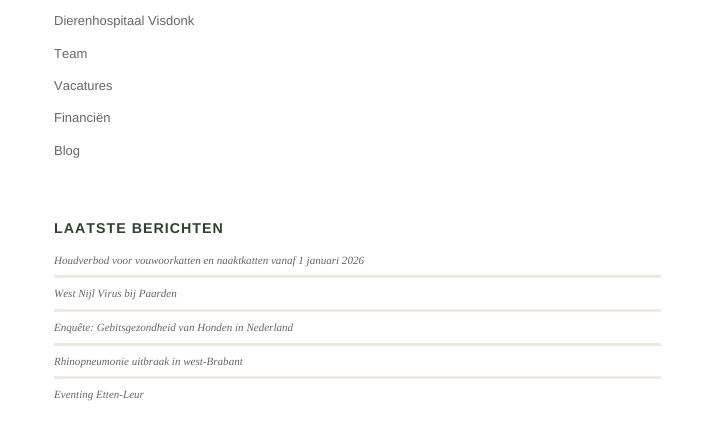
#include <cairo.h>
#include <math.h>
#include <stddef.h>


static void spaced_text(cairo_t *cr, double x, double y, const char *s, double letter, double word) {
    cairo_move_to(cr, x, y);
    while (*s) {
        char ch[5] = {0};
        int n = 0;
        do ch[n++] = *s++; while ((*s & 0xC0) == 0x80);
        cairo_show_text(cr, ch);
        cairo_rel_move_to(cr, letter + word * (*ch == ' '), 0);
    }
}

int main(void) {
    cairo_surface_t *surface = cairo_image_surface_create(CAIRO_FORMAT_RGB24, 715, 436);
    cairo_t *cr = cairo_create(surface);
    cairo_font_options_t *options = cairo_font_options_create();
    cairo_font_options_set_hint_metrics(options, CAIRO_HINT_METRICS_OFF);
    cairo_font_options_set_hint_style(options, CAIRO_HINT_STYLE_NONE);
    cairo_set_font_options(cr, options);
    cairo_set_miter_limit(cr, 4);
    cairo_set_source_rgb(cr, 1, 1, 1);
    cairo_paint(cr);
    cairo_select_font_face(cr, "Liberation Sans", CAIRO_FONT_SLANT_NORMAL, CAIRO_FONT_WEIGHT_NORMAL);
    cairo_set_font_size(cr, 13);
    cairo_set_source_rgb(cr, 0.4, 0.4, 0.4);
    cairo_move_to(cr, 54, 25);
    cairo_show_text(cr, "Dierenhospitaal Visdonk");
    cairo_move_to(cr, 54, 58);
    cairo_show_text(cr, "Team");
    cairo_move_to(cr, 54, 90);
    cairo_show_text(cr, "Vacatures");
    cairo_move_to(cr, 54, 122);
    cairo_show_text(cr, "Financiën");
    cairo_move_to(cr, 54, 155);
    cairo_show_text(cr, "Blog");
    cairo_select_font_face(cr, "Liberation Sans", CAIRO_FONT_SLANT_NORMAL, CAIRO_FONT_WEIGHT_BOLD);
    cairo_set_font_size(cr, 14.25);
    cairo_set_source_rgb(cr, 0.188, 0.255, 0.188);
    spaced_text(cr, 54, 233, "LAATSTE BERICHTEN", 1, 0);
    cairo_select_font_face(cr, "Liberation Serif", CAIRO_FONT_SLANT_ITALIC, CAIRO_FONT_WEIGHT_NORMAL);
    cairo_set_font_size(cr, 11.05);
    cairo_set_source_rgb(cr, 0.4, 0.4, 0.4);
    cairo_move_to(cr, 54, 264);
    cairo_show_text(cr, "Houdverbod voor vouwoorkatten en naaktkatten vanaf 1 januari 2026");
    cairo_set_source_rgb(cr, 0.933, 0.91, 0.878);
    cairo_rectangle(cr, 54, 275, 607, 3);
    cairo_fill(cr);
    cairo_set_source_rgb(cr, 0.4, 0.4, 0.4);
    cairo_move_to(cr, 54, 297);
    cairo_show_text(cr, "West Nijl Virus bij Paarden");
    cairo_set_source_rgb(cr, 0.933, 0.91, 0.878);
    cairo_rectangle(cr, 54, 309, 607, 3);
    cairo_fill(cr);
    cairo_set_source_rgb(cr, 0.4, 0.4, 0.4);
    cairo_move_to(cr, 54, 331);
    cairo_show_text(cr, "Enquête: Gebitsgezondheid van Honden in Nederland");
    cairo_set_source_rgb(cr, 0.933, 0.91, 0.878);
    cairo_rectangle(cr, 54, 343, 607, 3);
    cairo_fill(cr);
    cairo_set_source_rgb(cr, 0.4, 0.4, 0.4);
    cairo_move_to(cr, 54, 365);
    cairo_show_text(cr, "Rhinopneumonie uitbraak in west-Brabant");
    cairo_set_source_rgb(cr, 0.933, 0.91, 0.878);
    cairo_rectangle(cr, 54, 376, 607, 3);
    cairo_fill(cr);
    cairo_set_source_rgb(cr, 0.4, 0.4, 0.4);
    cairo_move_to(cr, 54, 398);
    cairo_show_text(cr, "Eventing Etten-Leur");
    cairo_surface_write_to_png(surface, "page.png");
    cairo_font_options_destroy(options);
    cairo_destroy(cr);
    cairo_surface_destroy(surface);
    return 0;
}
